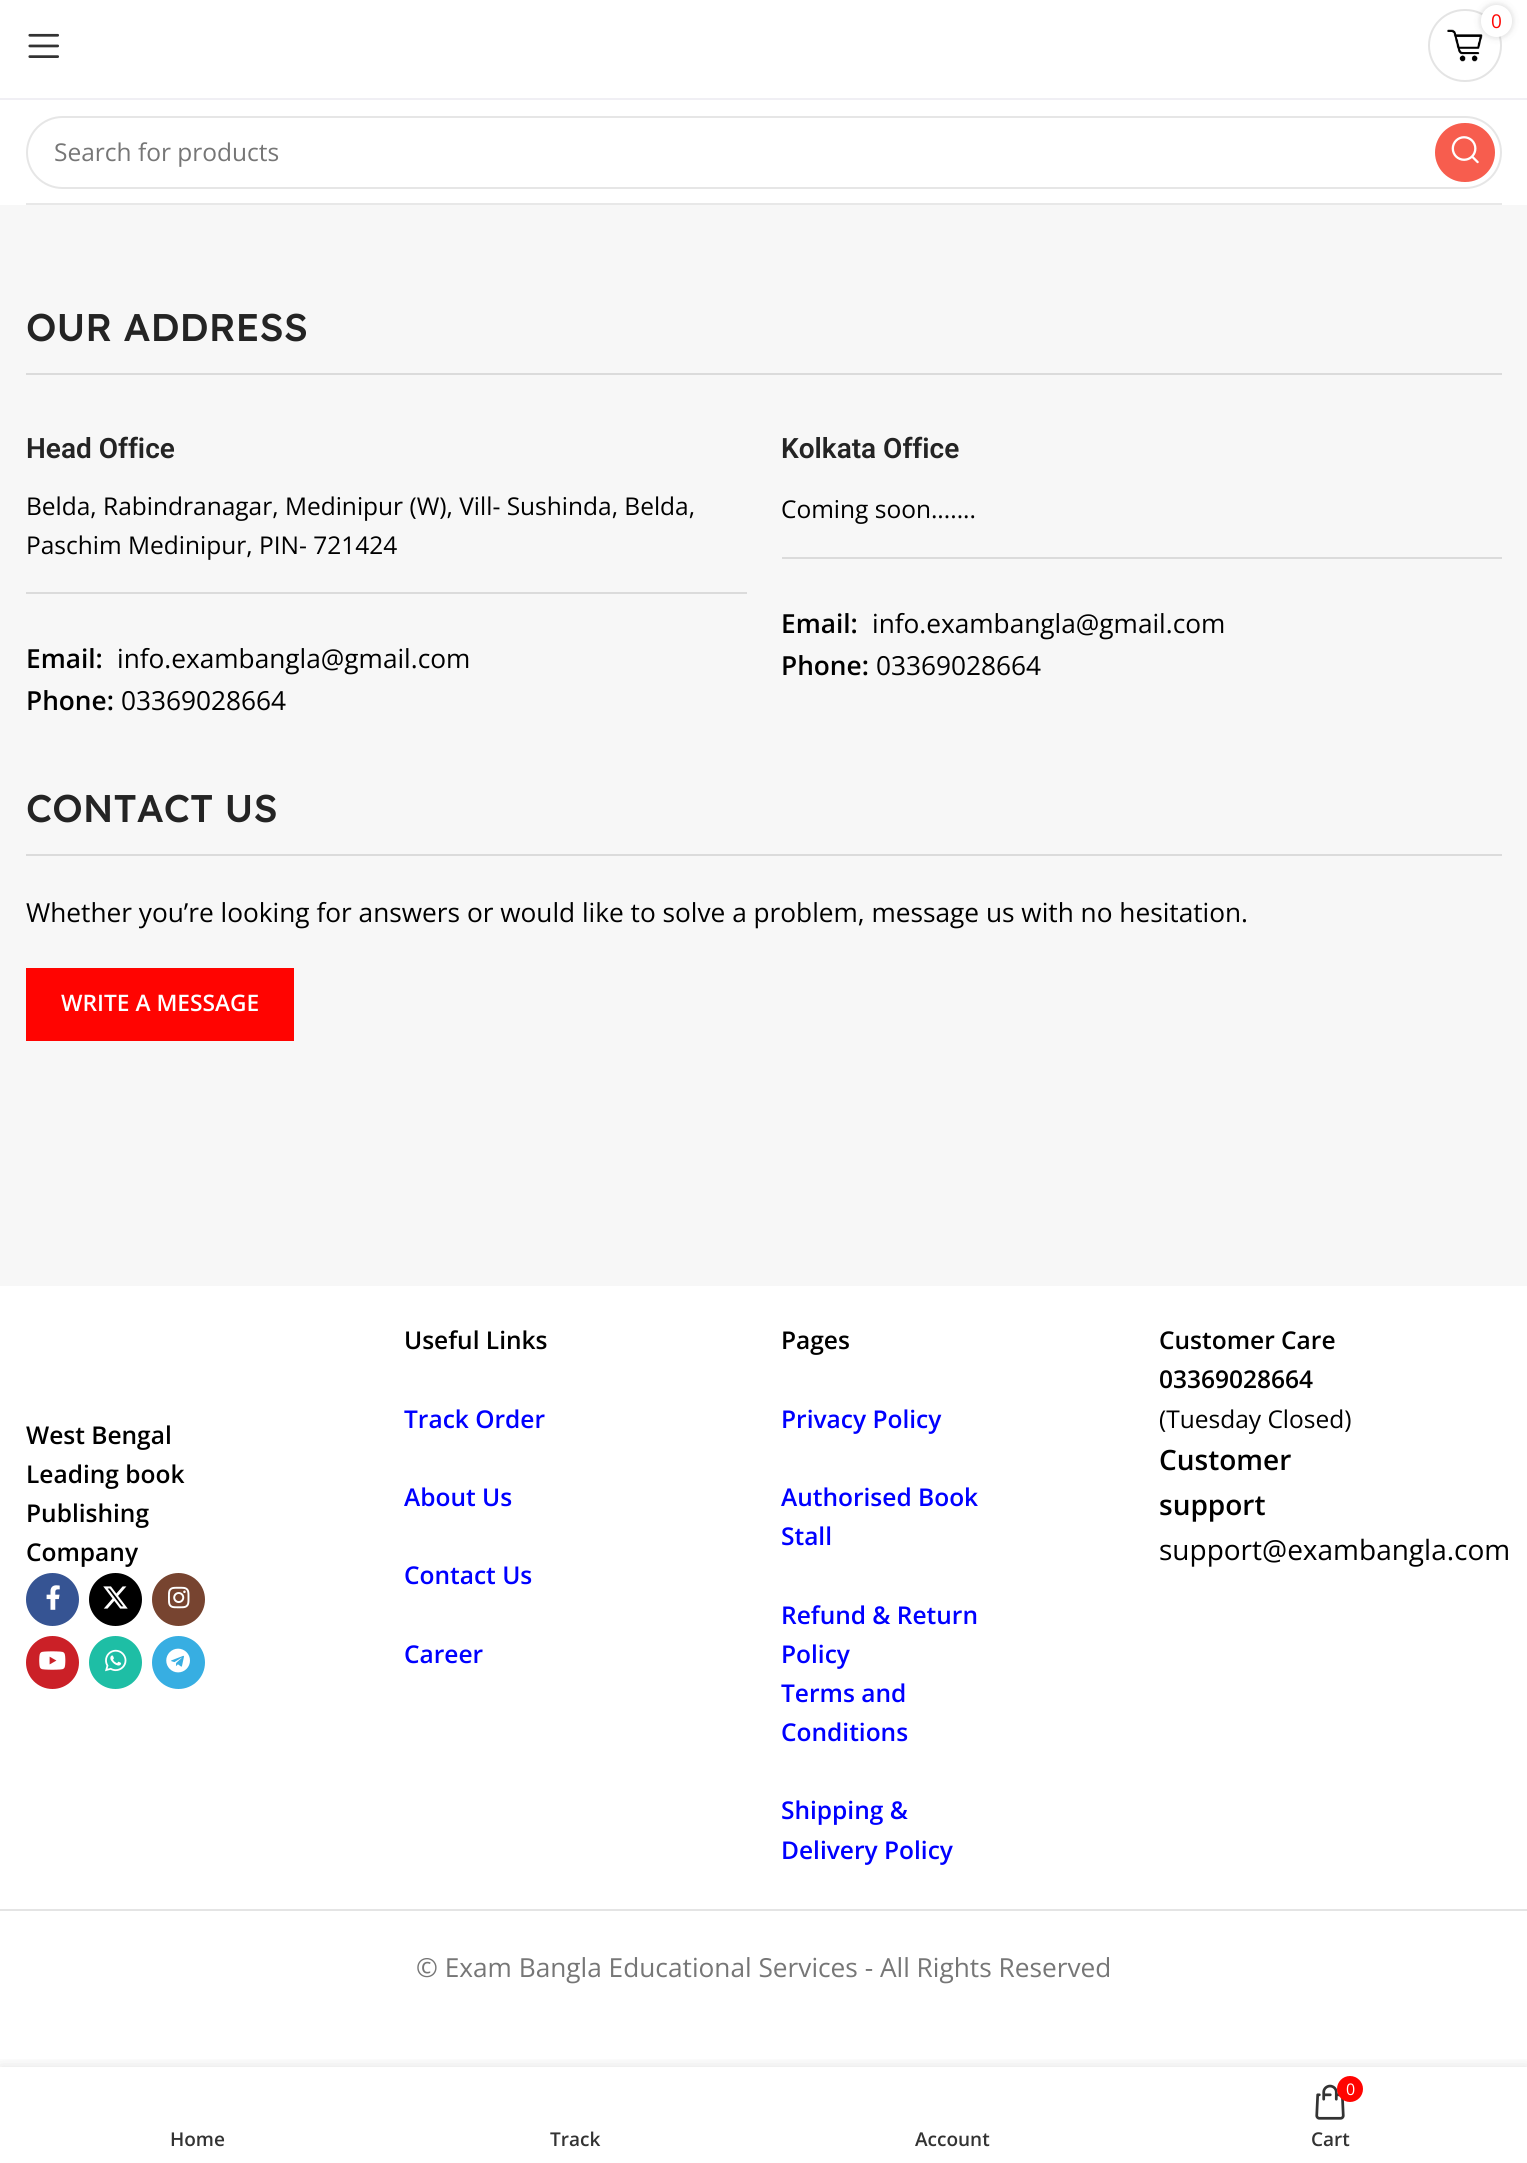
#include <cairo.h>
#include <math.h>
#include <stddef.h>


static void round_rect(cairo_t *cr, double x, double y, double w, double h, double r) {
    cairo_new_sub_path(cr);
    cairo_arc(cr, x + w - r, y + h - r, r, 0, M_PI / 2);
    cairo_arc(cr, x + r, y + h - r, r, M_PI / 2, M_PI);
    cairo_arc(cr, x + r, y + r, r, M_PI, 1.5 * M_PI);
    cairo_arc(cr, x + w - r, y + r, r, 1.5 * M_PI, 2 * M_PI);
    cairo_close_path(cr);
}

static void shadow(cairo_t *cr, double x, double y, double w, double h, double r, double blur, double alpha) {
    cairo_push_group_with_content(cr, CAIRO_CONTENT_ALPHA);
    cairo_set_operator(cr, CAIRO_OPERATOR_SOURCE);
    for (int i = 15; i >= -15 && fmin(w, h) + blur * i / 3 > 0; i -= 2) {
        double e = blur * i / 6;
        cairo_set_source_rgba(cr, 0, 0, 0, alpha * erfc((i - 1) / 8.5) / 2);
        round_rect(cr, x - e, y - e, w + 2 * e, h + 2 * e, fmax(0, fmin(r + e + blur * .6, fmin(w, h) / 2 + e)));
        cairo_fill(cr);
    }
    cairo_pattern_t *soft = cairo_pop_group(cr);
    cairo_mask(cr, soft);
    cairo_pattern_destroy(soft);
}

static void picture(cairo_t *cr, const char *path, double x, double y, double w, double h) {
    cairo_surface_t *image = cairo_image_surface_create_from_png(path);
    cairo_save(cr);
    cairo_set_source_surface(cr, image, x, y);
    cairo_rectangle(cr, x, y, w, h);
    cairo_fill(cr);
    cairo_restore(cr);
    cairo_surface_destroy(image);
}

int main(void) {
    cairo_surface_t *surface = cairo_image_surface_create(CAIRO_FORMAT_RGB24, 1527, 2163);
    cairo_t *cr = cairo_create(surface);
    cairo_font_options_t *options = cairo_font_options_create();
    cairo_font_options_set_hint_metrics(options, CAIRO_HINT_METRICS_OFF);
    cairo_font_options_set_hint_style(options, CAIRO_HINT_STYLE_NONE);
    cairo_set_font_options(cr, options);
    cairo_set_miter_limit(cr, 4);
    cairo_set_source_rgb(cr, 1, 1, 1);
    cairo_paint(cr);
    cairo_set_source_rgb(cr, 0.941, 0.937, 0.957);
    cairo_rectangle(cr, 0, 98, 1527, 2);
    cairo_fill(cr);
    round_rect(cr, 1429, 10, 72, 71, 35.5);
    cairo_set_source_rgb(cr, 0.894, 0.894, 0.894);
    cairo_stroke(cr);
    picture(cr, "img1.png", 1447, 29, 36, 33);
    cairo_set_source_rgb(cr, 0, 0, 0);
    shadow(cr, 1481, 5, 31, 32, 15.5, 3.5, 0.17);
    cairo_set_source_rgb(cr, 1, 1, 1);
    round_rect(cr, 1481, 5, 31, 32, 15.5);
    cairo_fill(cr);
    cairo_select_font_face(cr, "Open Sans", CAIRO_FONT_SLANT_NORMAL, CAIRO_FONT_WEIGHT_NORMAL);
    cairo_set_font_size(cr, 19);
    cairo_set_source_rgb(cr, 1, 0.016, 0.004);
    cairo_move_to(cr, 1491, 28);
    cairo_show_text(cr, "0");
    picture(cr, "img2.png", 28, 33, 31, 25);
    cairo_set_source_rgb(cr, 0.91, 0.91, 0.91);
    cairo_rectangle(cr, 26, 203, 1476, 2);
    cairo_fill(cr);
    round_rect(cr, 27, 117, 1474, 71, 35.5);
    cairo_set_source_rgb(cr, 0.902, 0.902, 0.902);
    cairo_stroke(cr);
    cairo_set_font_size(cr, 24.5);
    cairo_set_source_rgb(cr, 0.463, 0.463, 0.463);
    cairo_move_to(cr, 54, 161);
    cairo_show_text(cr, "Search for products");
    cairo_set_source_rgb(cr, 0.965, 0.365, 0.306);
    round_rect(cr, 1435, 123, 60, 59, 29.5);
    cairo_fill(cr);
    picture(cr, "img3.png", 1451, 136, 28, 28);
    cairo_set_source_rgb(cr, 0.965, 0.965, 0.965);
    cairo_rectangle(cr, 0, 205, 1527, 1081);
    cairo_fill(cr);
    cairo_set_source_rgb(cr, 0.859, 0.859, 0.859);
    cairo_rectangle(cr, 26, 373, 1476, 2);
    cairo_fill(cr);
    cairo_select_font_face(cr, "Lexend Deca Medium", CAIRO_FONT_SLANT_NORMAL, CAIRO_FONT_WEIGHT_NORMAL);
    cairo_set_font_size(cr, 38.5);
    cairo_set_source_rgb(cr, 0.141, 0.141, 0.141);
    cairo_move_to(cr, 26, 341);
    cairo_show_text(cr, "OUR ADDRESS");
    cairo_set_source_rgb(cr, 0.859, 0.859, 0.859);
    cairo_rectangle(cr, 26, 592, 721, 2);
    cairo_fill(cr);
    cairo_select_font_face(cr, "Roboto SemiBold", CAIRO_FONT_SLANT_NORMAL, CAIRO_FONT_WEIGHT_NORMAL);
    cairo_set_font_size(cr, 28);
    cairo_set_source_rgb(cr, 0.141, 0.141, 0.141);
    cairo_move_to(cr, 26, 458);
    cairo_show_text(cr, "Head Office");
    cairo_select_font_face(cr, "Open Sans", CAIRO_FONT_SLANT_NORMAL, CAIRO_FONT_WEIGHT_NORMAL);
    cairo_set_font_size(cr, 24.5);
    cairo_set_source_rgb(cr, 0, 0, 0);
    cairo_move_to(cr, 26, 515);
    cairo_show_text(cr, "Belda, Rabindranagar, Medinipur (W), Vill- Sushinda, Belda,");
    cairo_move_to(cr, 26, 554);
    cairo_show_text(cr, "Paschim Medinipur, PIN- 721424");
    cairo_select_font_face(cr, "Open Sans SemiBold", CAIRO_FONT_SLANT_NORMAL, CAIRO_FONT_WEIGHT_NORMAL);
    cairo_set_font_size(cr, 26.25);
    cairo_move_to(cr, 26, 668);
    cairo_show_text(cr, "Email:");
    cairo_select_font_face(cr, "Open Sans", CAIRO_FONT_SLANT_NORMAL, CAIRO_FONT_WEIGHT_NORMAL);
    cairo_move_to(cr, 117, 668);
    cairo_show_text(cr, "info.exambangla@gmail.com");
    cairo_select_font_face(cr, "Open Sans SemiBold", CAIRO_FONT_SLANT_NORMAL, CAIRO_FONT_WEIGHT_NORMAL);
    cairo_move_to(cr, 26, 710);
    cairo_show_text(cr, "Phone:");
    cairo_select_font_face(cr, "Open Sans", CAIRO_FONT_SLANT_NORMAL, CAIRO_FONT_WEIGHT_NORMAL);
    cairo_move_to(cr, 121, 710);
    cairo_show_text(cr, "03369028664");
    cairo_set_source_rgb(cr, 0.859, 0.859, 0.859);
    cairo_rectangle(cr, 782, 557, 720, 2);
    cairo_fill(cr);
    cairo_select_font_face(cr, "Roboto SemiBold", CAIRO_FONT_SLANT_NORMAL, CAIRO_FONT_WEIGHT_NORMAL);
    cairo_set_font_size(cr, 28);
    cairo_set_source_rgb(cr, 0.141, 0.141, 0.141);
    cairo_move_to(cr, 781, 458);
    cairo_show_text(cr, "Kolkata Office");
    cairo_select_font_face(cr, "Open Sans", CAIRO_FONT_SLANT_NORMAL, CAIRO_FONT_WEIGHT_NORMAL);
    cairo_set_font_size(cr, 24.5);
    cairo_set_source_rgb(cr, 0, 0, 0);
    cairo_move_to(cr, 781, 518);
    cairo_show_text(cr, "Coming soon.......");
    cairo_select_font_face(cr, "Open Sans SemiBold", CAIRO_FONT_SLANT_NORMAL, CAIRO_FONT_WEIGHT_NORMAL);
    cairo_set_font_size(cr, 26.25);
    cairo_move_to(cr, 781, 633);
    cairo_show_text(cr, "Email:");
    cairo_select_font_face(cr, "Open Sans", CAIRO_FONT_SLANT_NORMAL, CAIRO_FONT_WEIGHT_NORMAL);
    cairo_move_to(cr, 872, 633);
    cairo_show_text(cr, "info.exambangla@gmail.com");
    cairo_select_font_face(cr, "Open Sans SemiBold", CAIRO_FONT_SLANT_NORMAL, CAIRO_FONT_WEIGHT_NORMAL);
    cairo_move_to(cr, 781, 675);
    cairo_show_text(cr, "Phone:");
    cairo_select_font_face(cr, "Open Sans", CAIRO_FONT_SLANT_NORMAL, CAIRO_FONT_WEIGHT_NORMAL);
    cairo_move_to(cr, 876, 675);
    cairo_show_text(cr, "03369028664");
    cairo_set_source_rgb(cr, 0.859, 0.859, 0.859);
    cairo_rectangle(cr, 26, 854, 1476, 2);
    cairo_fill(cr);
    cairo_select_font_face(cr, "Lexend Deca Medium", CAIRO_FONT_SLANT_NORMAL, CAIRO_FONT_WEIGHT_NORMAL);
    cairo_set_font_size(cr, 38.5);
    cairo_set_source_rgb(cr, 0.141, 0.141, 0.141);
    cairo_move_to(cr, 26, 822);
    cairo_show_text(cr, "CONTACT US");
    cairo_select_font_face(cr, "Open Sans", CAIRO_FONT_SLANT_NORMAL, CAIRO_FONT_WEIGHT_NORMAL);
    cairo_set_font_size(cr, 26.25);
    cairo_set_source_rgb(cr, 0, 0, 0);
    cairo_move_to(cr, 26, 922);
    cairo_show_text(cr, "Whether you’re looking for answers or would like to solve a problem, message us with no hesitation.");
    cairo_set_source_rgb(cr, 1, 0.016, 0.004);
    cairo_rectangle(cr, 26, 968, 268, 73);
    cairo_fill(cr);
    cairo_select_font_face(cr, "Open Sans SemiBold", CAIRO_FONT_SLANT_NORMAL, CAIRO_FONT_WEIGHT_NORMAL);
    cairo_set_font_size(cr, 22.75);
    cairo_set_source_rgb(cr, 1, 1, 1);
    cairo_move_to(cr, 61, 1011);
    cairo_show_text(cr, "WRITE A MESSAGE");
    cairo_set_font_size(cr, 24.5);
    cairo_set_source_rgb(cr, 0, 0, 0);
    cairo_move_to(cr, 26, 1444);
    cairo_show_text(cr, "West Bengal");
    cairo_move_to(cr, 26, 1483);
    cairo_show_text(cr, "Leading book");
    cairo_move_to(cr, 26, 1522);
    cairo_show_text(cr, "Publishing");
    cairo_move_to(cr, 26, 1561);
    cairo_show_text(cr, "Company");
    cairo_set_source_rgb(cr, 0.212, 0.329, 0.576);
    cairo_new_path(cr);
    cairo_arc(cr, 52.5, 1599.5, 26.5, 0, 2 * M_PI);
    cairo_fill(cr);
    picture(cr, "img4.png", 46, 1585, 14, 25);
    cairo_set_source_rgb(cr, 0, 0, 0);
    cairo_arc(cr, 115.5, 1599.5, 26.5, 0, 2 * M_PI);
    cairo_fill(cr);
    picture(cr, "img5.png", 103, 1586, 25, 23);
    cairo_set_source_rgb(cr, 0.467, 0.267, 0.188);
    cairo_arc(cr, 178.5, 1599.5, 26.5, 0, 2 * M_PI);
    cairo_fill(cr);
    picture(cr, "img6.png", 168, 1586, 22, 23);
    cairo_set_source_rgb(cr, 0.796, 0.125, 0.153);
    cairo_arc(cr, 52.5, 1662.5, 26.5, 0, 2 * M_PI);
    cairo_fill(cr);
    picture(cr, "img7.png", 39, 1651, 27, 19);
    cairo_set_source_rgb(cr, 0.118, 0.745, 0.647);
    cairo_arc(cr, 115.5, 1662.5, 26.5, 0, 2 * M_PI);
    cairo_fill(cr);
    picture(cr, "img8.png", 105, 1649, 22, 23);
    cairo_set_source_rgb(cr, 0.216, 0.682, 0.886);
    cairo_arc(cr, 178.5, 1662.5, 26.5, 0, 2 * M_PI);
    cairo_fill(cr);
    picture(cr, "img9.png", 166, 1648, 24, 25);
    cairo_set_source_rgb(cr, 0, 0, 0);
    cairo_move_to(cr, 404, 1349);
    cairo_show_text(cr, "Useful Links");
    cairo_set_source_rgb(cr, 0, 0, 1);
    cairo_move_to(cr, 404, 1428);
    cairo_show_text(cr, "Track Order");
    cairo_move_to(cr, 404, 1506);
    cairo_show_text(cr, "About Us");
    cairo_move_to(cr, 404, 1584);
    cairo_show_text(cr, "Contact Us");
    cairo_move_to(cr, 404, 1663);
    cairo_show_text(cr, "Career");
    cairo_set_source_rgb(cr, 0, 0, 0);
    cairo_move_to(cr, 781, 1349);
    cairo_show_text(cr, "Pages");
    cairo_set_source_rgb(cr, 0, 0, 1);
    cairo_move_to(cr, 781, 1428);
    cairo_show_text(cr, "Privacy Policy");
    cairo_move_to(cr, 781, 1506);
    cairo_show_text(cr, "Authorised Book");
    cairo_move_to(cr, 781, 1545);
    cairo_show_text(cr, "Stall");
    cairo_move_to(cr, 781, 1624);
    cairo_show_text(cr, "Refund & Return");
    cairo_move_to(cr, 781, 1663);
    cairo_show_text(cr, "Policy");
    cairo_move_to(cr, 781, 1702);
    cairo_show_text(cr, "Terms and");
    cairo_move_to(cr, 781, 1741);
    cairo_show_text(cr, "Conditions");
    cairo_move_to(cr, 781, 1819);
    cairo_show_text(cr, "Shipping &");
    cairo_move_to(cr, 781, 1859);
    cairo_show_text(cr, "Delivery Policy");
    cairo_set_source_rgb(cr, 0, 0, 0);
    cairo_move_to(cr, 1159, 1349);
    cairo_show_text(cr, "Customer Care");
    cairo_move_to(cr, 1159, 1388);
    cairo_show_text(cr, "03369028664");
    cairo_select_font_face(cr, "Open Sans", CAIRO_FONT_SLANT_NORMAL, CAIRO_FONT_WEIGHT_NORMAL);
    cairo_move_to(cr, 1159, 1428);
    cairo_show_text(cr, "(Tuesday Closed)");
    cairo_select_font_face(cr, "Open Sans SemiBold", CAIRO_FONT_SLANT_NORMAL, CAIRO_FONT_WEIGHT_NORMAL);
    cairo_set_font_size(cr, 28);
    cairo_move_to(cr, 1159, 1470);
    cairo_show_text(cr, "Customer");
    cairo_move_to(cr, 1159, 1515);
    cairo_show_text(cr, "support");
    cairo_select_font_face(cr, "Open Sans", CAIRO_FONT_SLANT_NORMAL, CAIRO_FONT_WEIGHT_NORMAL);
    cairo_move_to(cr, 1159, 1560);
    cairo_show_text(cr, "support@exambangla.com");
    cairo_set_source_rgb(cr, 0.894, 0.894, 0.894);
    cairo_rectangle(cr, 0, 1909, 1527, 2);
    cairo_fill(cr);
    cairo_set_font_size(cr, 26.25);
    cairo_set_source_rgb(cr, 0.463, 0.463, 0.463);
    cairo_move_to(cr, 416, 1977);
    cairo_show_text(cr, "© Exam Bangla Educational Services - All Rights Reserved");
    cairo_save(cr);
    cairo_rectangle(cr, 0, 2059, 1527, 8);
    cairo_clip(cr);
    cairo_set_source_rgb(cr, 0, 0, 0);
    shadow(cr, 0, 2067, 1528, 96, 0, 8, 0.12);
    cairo_restore(cr);
    cairo_select_font_face(cr, "Open Sans SemiBold", CAIRO_FONT_SLANT_NORMAL, CAIRO_FONT_WEIGHT_NORMAL);
    cairo_set_font_size(cr, 19);
    cairo_set_source_rgb(cr, 0.2, 0.2, 0.2);
    cairo_move_to(cr, 170, 2146);
    cairo_show_text(cr, "Home");
    cairo_move_to(cr, 550, 2146);
    cairo_show_text(cr, "Track");
    cairo_move_to(cr, 915, 2146);
    cairo_show_text(cr, "Account");
    picture(cr, "img10.png", 1315, 2084, 30, 36);
    cairo_set_source_rgb(cr, 1, 0.016, 0.004);
    cairo_arc(cr, 1350, 2089, 13, 0, 2 * M_PI);
    cairo_fill(cr);
    cairo_select_font_face(cr, "Open Sans", CAIRO_FONT_SLANT_NORMAL, CAIRO_FONT_WEIGHT_NORMAL);
    cairo_set_font_size(cr, 16);
    cairo_set_source_rgb(cr, 1, 1, 1);
    cairo_move_to(cr, 1346, 2095);
    cairo_show_text(cr, "0");
    cairo_select_font_face(cr, "Open Sans SemiBold", CAIRO_FONT_SLANT_NORMAL, CAIRO_FONT_WEIGHT_NORMAL);
    cairo_set_font_size(cr, 19);
    cairo_set_source_rgb(cr, 0.2, 0.2, 0.2);
    cairo_move_to(cr, 1311, 2146);
    cairo_show_text(cr, "Cart");
    cairo_surface_write_to_png(surface, "page.png");
    cairo_font_options_destroy(options);
    cairo_destroy(cr);
    cairo_surface_destroy(surface);
    return 0;
}
